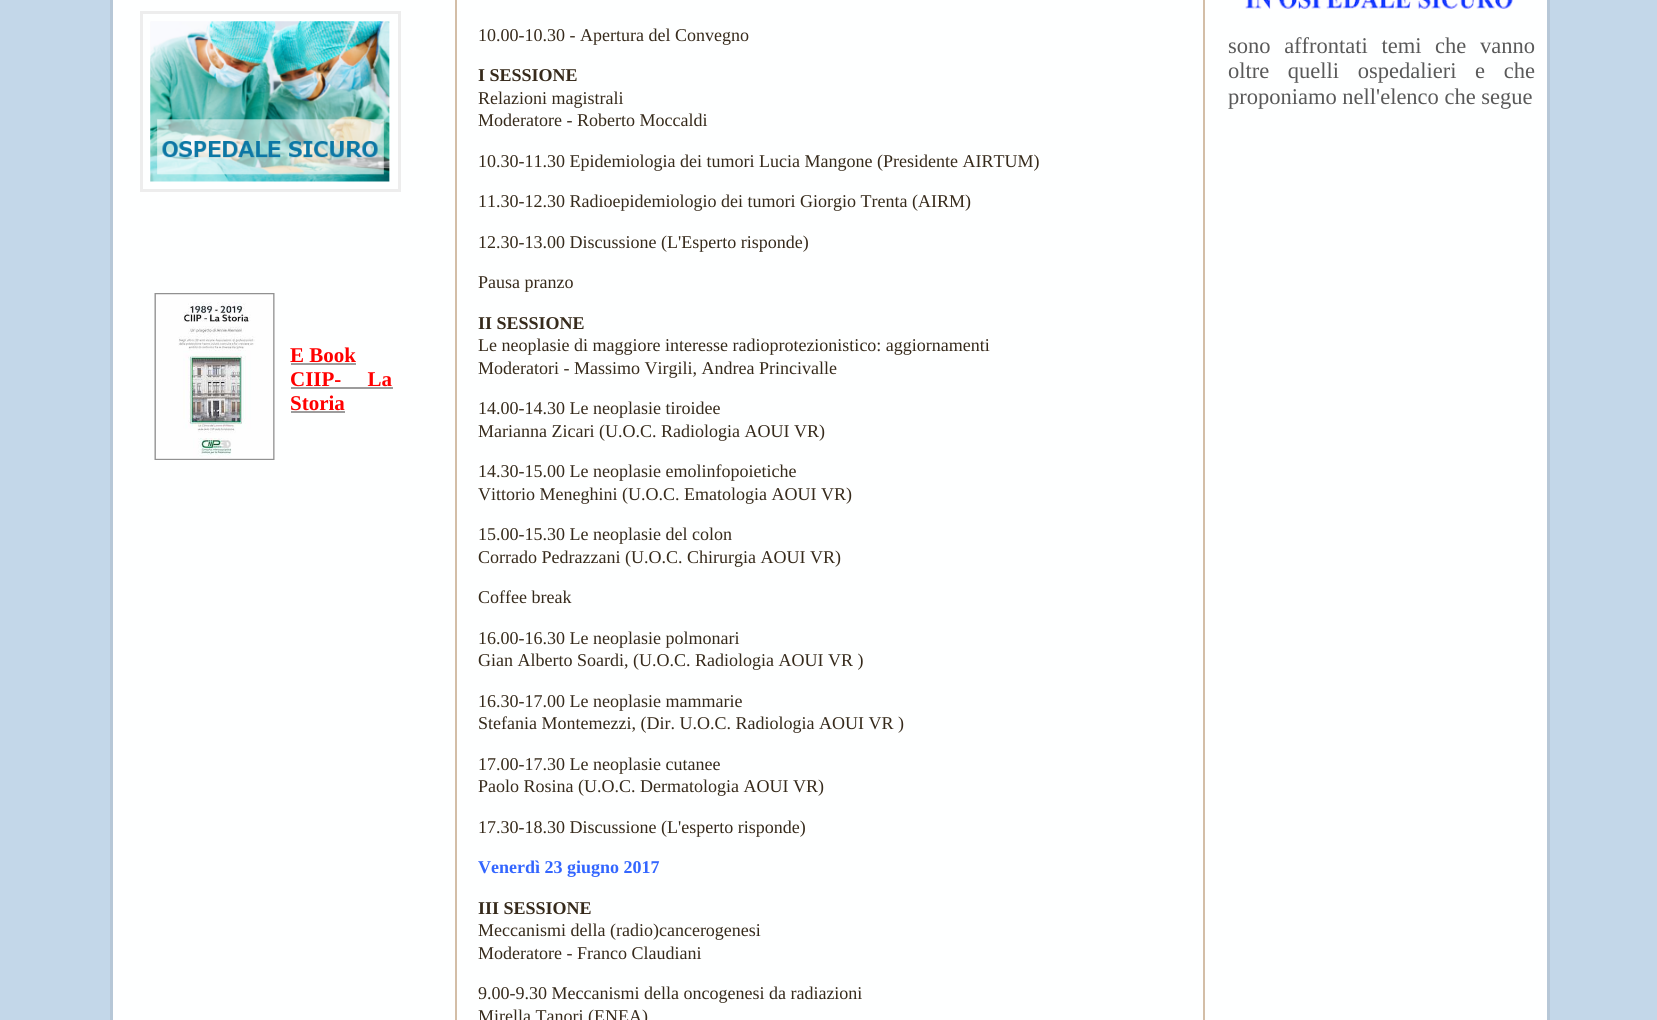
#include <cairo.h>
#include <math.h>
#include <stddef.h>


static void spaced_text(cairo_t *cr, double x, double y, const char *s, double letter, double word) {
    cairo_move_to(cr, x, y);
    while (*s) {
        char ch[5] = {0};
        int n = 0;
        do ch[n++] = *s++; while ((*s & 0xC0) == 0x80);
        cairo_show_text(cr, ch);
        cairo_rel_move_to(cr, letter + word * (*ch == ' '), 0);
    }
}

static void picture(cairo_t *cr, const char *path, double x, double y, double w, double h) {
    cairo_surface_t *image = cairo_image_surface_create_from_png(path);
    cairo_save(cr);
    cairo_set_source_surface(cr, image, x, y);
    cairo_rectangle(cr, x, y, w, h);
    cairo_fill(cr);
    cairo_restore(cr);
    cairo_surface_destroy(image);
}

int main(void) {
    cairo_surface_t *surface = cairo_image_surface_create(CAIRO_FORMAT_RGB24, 1657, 1020);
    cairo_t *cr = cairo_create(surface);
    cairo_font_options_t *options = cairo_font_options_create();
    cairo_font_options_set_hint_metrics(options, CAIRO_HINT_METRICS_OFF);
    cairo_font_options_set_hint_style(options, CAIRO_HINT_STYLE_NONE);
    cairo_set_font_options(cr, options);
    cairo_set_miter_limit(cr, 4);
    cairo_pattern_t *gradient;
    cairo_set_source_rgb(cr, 1, 1, 1);
    cairo_paint(cr);
    gradient = cairo_pattern_create_linear(829, -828, 829, 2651);
    cairo_pattern_add_color_stop_rgba(gradient, 0, 0.325, 0.549, 0.757, 1);
    cairo_pattern_add_color_stop_rgba(gradient, 0.13, 0.765, 0.843, 0.914, 1);
    cairo_set_source(cr, gradient);
    cairo_pattern_destroy(gradient);
    cairo_rectangle(cr, 0, 0, 1657, 1020);
    cairo_fill(cr);
    cairo_set_source_rgb(cr, 0.996, 1, 1);
    cairo_rectangle(cr, 111.5, -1.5, 1437, 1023);
    cairo_fill_preserve(cr);
    cairo_set_source_rgb(cr, 0.714, 0.78, 0.843);
    cairo_set_line_width(cr, 3);
    cairo_stroke(cr);
    cairo_select_font_face(cr, "Liberation Serif", CAIRO_FONT_SLANT_NORMAL, CAIRO_FONT_WEIGHT_NORMAL);
    cairo_set_font_size(cr, 18);
    cairo_set_source_rgb(cr, 0.212, 0.165, 0.106);
    cairo_move_to(cr, 478, 41);
    cairo_show_text(cr, "10.00-10.30 - Apertura del Convegno");
    cairo_select_font_face(cr, "Liberation Serif", CAIRO_FONT_SLANT_NORMAL, CAIRO_FONT_WEIGHT_BOLD);
    cairo_move_to(cr, 478, 81);
    cairo_show_text(cr, "I SESSIONE");
    cairo_select_font_face(cr, "Liberation Serif", CAIRO_FONT_SLANT_NORMAL, CAIRO_FONT_WEIGHT_NORMAL);
    cairo_move_to(cr, 478, 104);
    cairo_show_text(cr, "Relazioni magistrali");
    cairo_move_to(cr, 478, 126);
    cairo_show_text(cr, "Moderatore - Roberto Moccaldi");
    cairo_move_to(cr, 478, 167);
    cairo_show_text(cr, "10.30-11.30 Epidemiologia dei tumori Lucia Mangone (Presidente AIRTUM)");
    cairo_move_to(cr, 478, 207);
    cairo_show_text(cr, "11.30-12.30 Radioepidemiologio dei tumori Giorgio Trenta (AIRM)");
    cairo_move_to(cr, 478, 248);
    cairo_show_text(cr, "12.30-13.00 Discussione (L'Esperto risponde)");
    cairo_move_to(cr, 478, 288);
    cairo_show_text(cr, "Pausa pranzo");
    cairo_select_font_face(cr, "Liberation Serif", CAIRO_FONT_SLANT_NORMAL, CAIRO_FONT_WEIGHT_BOLD);
    cairo_move_to(cr, 478, 329);
    cairo_show_text(cr, "II SESSIONE");
    cairo_select_font_face(cr, "Liberation Serif", CAIRO_FONT_SLANT_NORMAL, CAIRO_FONT_WEIGHT_NORMAL);
    cairo_move_to(cr, 478, 351);
    cairo_show_text(cr, "Le neoplasie di maggiore interesse radioprotezionistico: aggiornamenti");
    cairo_move_to(cr, 478, 374);
    cairo_show_text(cr, "Moderatori - Massimo Virgili, Andrea Princivalle");
    cairo_move_to(cr, 478, 414);
    cairo_show_text(cr, "14.00-14.30 Le neoplasie tiroidee");
    cairo_move_to(cr, 478, 437);
    cairo_show_text(cr, "Marianna Zicari (U.O.C. Radiologia AOUI VR)");
    cairo_move_to(cr, 478, 477);
    cairo_show_text(cr, "14.30-15.00 Le neoplasie emolinfopoietiche");
    cairo_move_to(cr, 478, 500);
    cairo_show_text(cr, "Vittorio Meneghini (U.O.C. Ematologia AOUI VR)");
    cairo_move_to(cr, 478, 540);
    cairo_show_text(cr, "15.00-15.30 Le neoplasie del colon");
    cairo_move_to(cr, 478, 563);
    cairo_show_text(cr, "Corrado Pedrazzani (U.O.C. Chirurgia AOUI VR)");
    cairo_move_to(cr, 478, 603);
    cairo_show_text(cr, "Coffee break");
    cairo_move_to(cr, 478, 644);
    cairo_show_text(cr, "16.00-16.30 Le neoplasie polmonari");
    cairo_move_to(cr, 478, 666);
    cairo_show_text(cr, "Gian Alberto Soardi, (U.O.C. Radiologia AOUI VR )");
    cairo_move_to(cr, 478, 707);
    cairo_show_text(cr, "16.30-17.00 Le neoplasie mammarie");
    cairo_move_to(cr, 478, 729);
    cairo_show_text(cr, "Stefania Montemezzi, (Dir. U.O.C. Radiologia AOUI VR )");
    cairo_move_to(cr, 478, 770);
    cairo_show_text(cr, "17.00-17.30 Le neoplasie cutanee");
    cairo_move_to(cr, 478, 792);
    cairo_show_text(cr, "Paolo Rosina (U.O.C. Dermatologia AOUI VR)");
    cairo_move_to(cr, 478, 833);
    cairo_show_text(cr, "17.30-18.30 Discussione (L'esperto risponde)");
    cairo_select_font_face(cr, "Liberation Serif", CAIRO_FONT_SLANT_NORMAL, CAIRO_FONT_WEIGHT_BOLD);
    cairo_set_source_rgb(cr, 0.2, 0.4, 1);
    cairo_move_to(cr, 478, 873);
    cairo_show_text(cr, "Venerdì 23 giugno 2017");
    cairo_set_source_rgb(cr, 0.212, 0.165, 0.106);
    cairo_move_to(cr, 478, 914);
    cairo_show_text(cr, "III SESSIONE");
    cairo_select_font_face(cr, "Liberation Serif", CAIRO_FONT_SLANT_NORMAL, CAIRO_FONT_WEIGHT_NORMAL);
    cairo_move_to(cr, 478, 936);
    cairo_show_text(cr, "Meccanismi della (radio)cancerogenesi");
    cairo_move_to(cr, 478, 959);
    cairo_show_text(cr, "Moderatore - Franco Claudiani");
    cairo_move_to(cr, 478, 999);
    cairo_show_text(cr, "9.00-9.30 Meccanismi della oncogenesi da radiazioni");
    cairo_move_to(cr, 478, 1022);
    cairo_show_text(cr, "Mirella Tanori (ENEA)");
    cairo_set_source_rgb(cr, 0.827, 0.745, 0.655);
    cairo_rectangle(cr, 1203, 0, 2, 1020);
    cairo_fill(cr);
    picture(cr, "img1.png", 1245, 0, 268, 9);
    cairo_set_font_size(cr, 22.5);
    cairo_set_source_rgb(cr, 0.349, 0.349, 0.349);
    spaced_text(cr, 1228, 53, "sono affrontati temi che vanno", 0, 8);
    spaced_text(cr, 1228, 78, "oltre quelli ospedalieri e che", 0, 13);
    cairo_move_to(cr, 1228, 104);
    cairo_show_text(cr, "proponiamo nell'elenco che segue");
    cairo_set_source_rgb(cr, 0.827, 0.745, 0.655);
    cairo_rectangle(cr, 455, 0, 2, 1020);
    cairo_fill(cr);
    cairo_rectangle(cr, 141.5, 12.5, 258, 178);
    cairo_set_source_rgb(cr, 0.929, 0.929, 0.929);
    cairo_stroke(cr);
    picture(cr, "img2.png", 150, 21, 240, 161);
    picture(cr, "img3.png", 154, 293, 121, 167);
    cairo_select_font_face(cr, "Liberation Serif", CAIRO_FONT_SLANT_NORMAL, CAIRO_FONT_WEIGHT_BOLD);
    cairo_set_font_size(cr, 21);
    cairo_set_source_rgb(cr, 1, 0, 0);
    cairo_move_to(cr, 290, 362);
    cairo_show_text(cr, "E Book");
    cairo_set_source_rgb(cr, 0.612, 0.612, 0.612);
    cairo_rectangle(cr, 291, 363, 65, 2);
    cairo_fill(cr);
    cairo_set_source_rgb(cr, 1, 0, 0);
    cairo_move_to(cr, 290, 386);
    cairo_show_text(cr, "CIIP-     La");
    cairo_set_source_rgb(cr, 0.612, 0.612, 0.612);
    cairo_rectangle(cr, 291, 387, 102, 2);
    cairo_fill(cr);
    cairo_set_source_rgb(cr, 1, 0, 0);
    cairo_move_to(cr, 290, 410);
    cairo_show_text(cr, "Storia");
    cairo_set_source_rgb(cr, 0.612, 0.612, 0.612);
    cairo_rectangle(cr, 291, 411, 54, 2);
    cairo_fill(cr);
    cairo_surface_write_to_png(surface, "page.png");
    cairo_font_options_destroy(options);
    cairo_destroy(cr);
    cairo_surface_destroy(surface);
    return 0;
}
